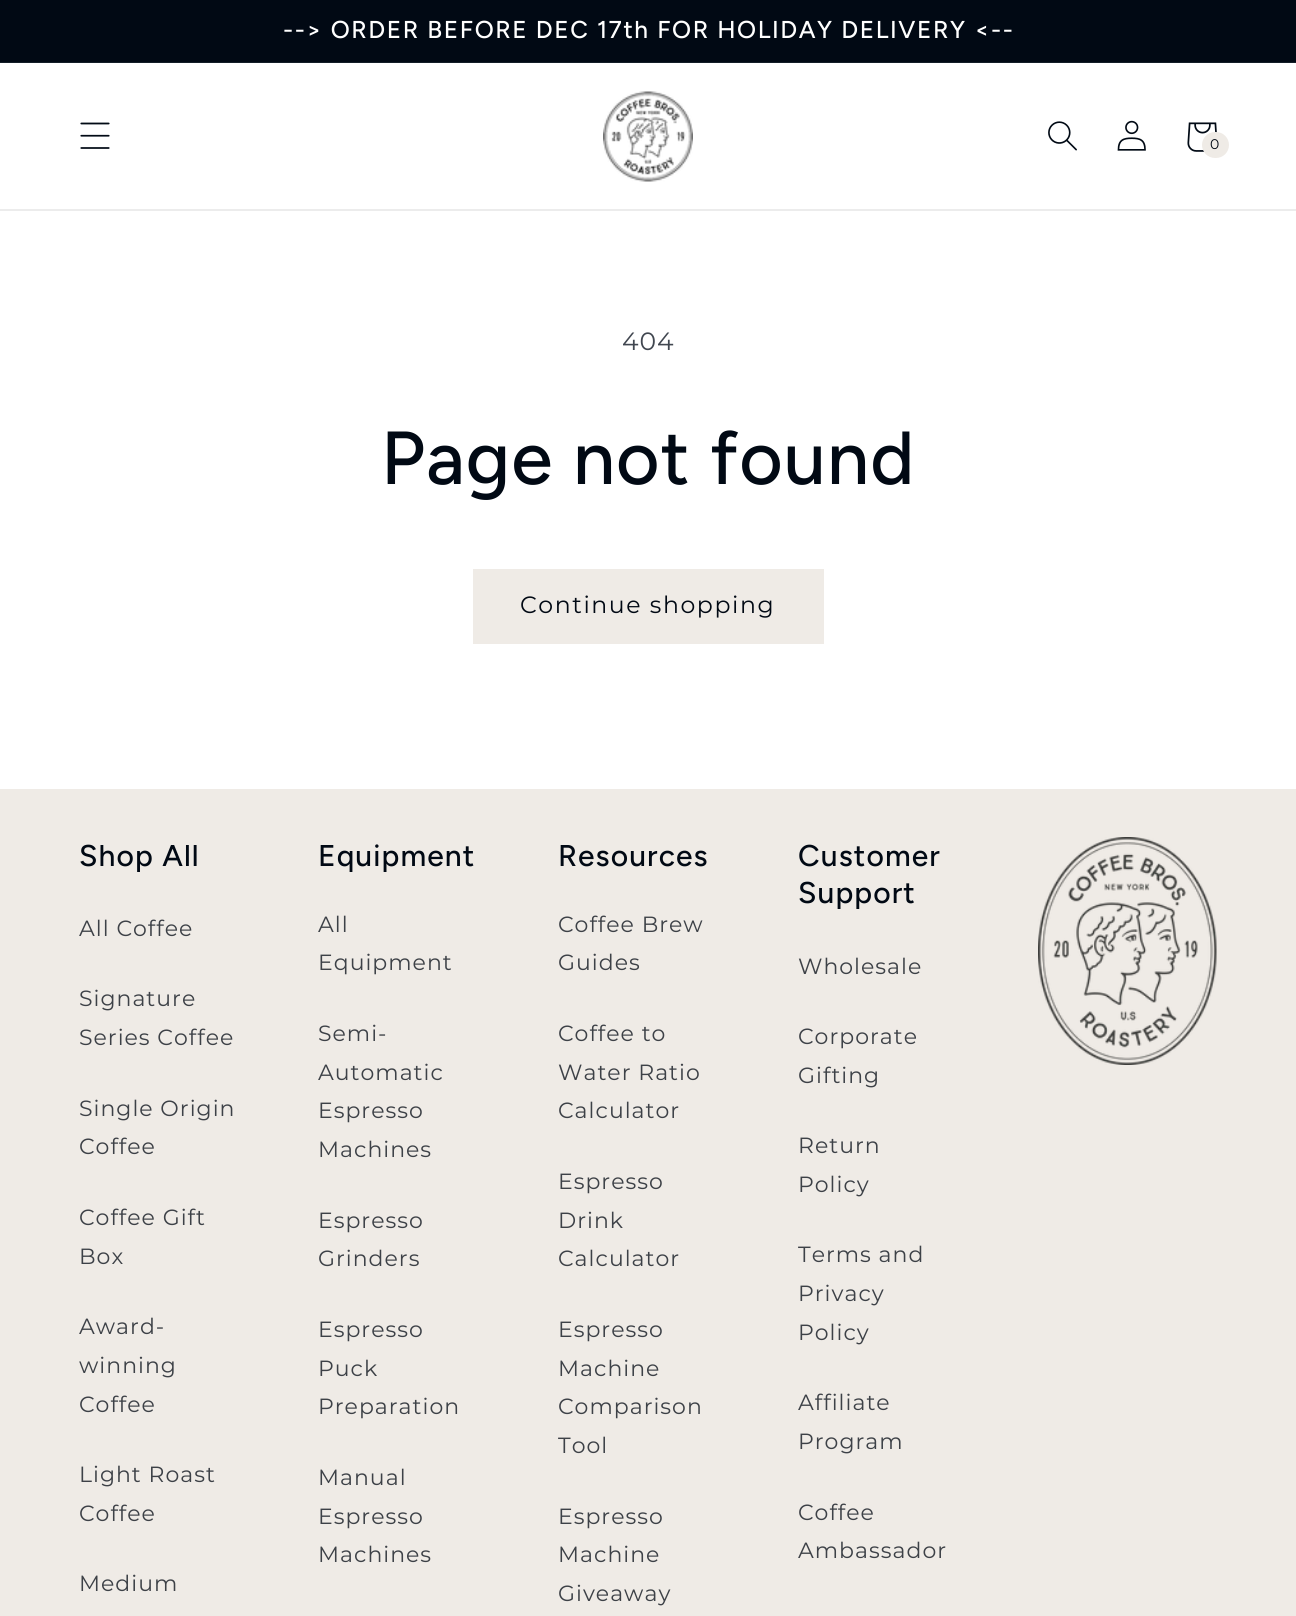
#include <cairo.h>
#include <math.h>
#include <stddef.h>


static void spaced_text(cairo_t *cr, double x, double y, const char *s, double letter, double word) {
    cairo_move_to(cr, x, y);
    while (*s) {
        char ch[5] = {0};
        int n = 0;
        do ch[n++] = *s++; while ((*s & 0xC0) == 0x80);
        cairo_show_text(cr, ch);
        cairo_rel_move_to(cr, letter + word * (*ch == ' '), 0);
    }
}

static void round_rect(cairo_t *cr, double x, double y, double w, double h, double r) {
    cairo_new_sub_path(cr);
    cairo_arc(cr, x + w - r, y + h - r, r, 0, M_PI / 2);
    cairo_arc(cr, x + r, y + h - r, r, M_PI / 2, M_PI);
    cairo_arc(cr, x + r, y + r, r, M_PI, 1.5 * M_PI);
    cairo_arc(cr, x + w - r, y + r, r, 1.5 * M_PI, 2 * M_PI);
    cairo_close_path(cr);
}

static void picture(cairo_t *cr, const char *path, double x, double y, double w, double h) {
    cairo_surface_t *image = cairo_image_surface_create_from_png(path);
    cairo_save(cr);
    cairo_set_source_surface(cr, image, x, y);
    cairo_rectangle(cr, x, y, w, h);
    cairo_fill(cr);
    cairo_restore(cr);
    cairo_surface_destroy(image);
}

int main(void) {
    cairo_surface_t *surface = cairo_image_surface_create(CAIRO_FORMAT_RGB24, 1296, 1616);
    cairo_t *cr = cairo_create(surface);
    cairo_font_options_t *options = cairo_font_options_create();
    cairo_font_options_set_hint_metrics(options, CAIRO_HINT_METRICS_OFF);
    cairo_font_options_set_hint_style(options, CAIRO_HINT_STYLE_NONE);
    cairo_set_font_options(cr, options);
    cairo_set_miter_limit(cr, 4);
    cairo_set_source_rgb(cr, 1, 1, 1);
    cairo_paint(cr);
    cairo_set_source_rgb(cr, 0.004, 0.039, 0.082);
    cairo_rectangle(cr, 0, 0, 1296, 62);
    cairo_fill(cr);
    cairo_set_source_rgb(cr, 0.082, 0.118, 0.157);
    cairo_rectangle(cr, 0, 62, 1296, 1);
    cairo_fill(cr);
    cairo_select_font_face(cr, "Figtree Medium", CAIRO_FONT_SLANT_NORMAL, CAIRO_FONT_WEIGHT_NORMAL);
    cairo_set_font_size(cr, 24.4);
    cairo_set_source_rgb(cr, 1, 1, 1);
    spaced_text(cr, 283, 38, "--> ORDER BEFORE DEC 17th FOR HOLIDAY DELIVERY <--", 1.58, 0);
    cairo_set_source_rgb(cr, 0.922, 0.922, 0.925);
    cairo_rectangle(cr, 0, 209, 1296, 2);
    cairo_fill(cr);
    picture(cr, "img1.png", 80, 122, 30, 27);
    picture(cr, "img2.png", 603, 91, 90, 91);
    picture(cr, "img3.png", 1048, 121, 29, 30);
    picture(cr, "img4.png", 1117, 120, 29, 31);
    picture(cr, "img5.png", 1187, 122, 30, 30);
    cairo_set_source_rgb(cr, 0.937, 0.918, 0.902);
    round_rect(cr, 1202, 132, 27, 26, 13);
    cairo_fill(cr);
    cairo_select_font_face(cr, "Montserrat", CAIRO_FONT_SLANT_NORMAL, CAIRO_FONT_WEIGHT_NORMAL);
    cairo_set_font_size(cr, 14);
    cairo_set_source_rgb(cr, 0.004, 0.039, 0.082);
    spaced_text(cr, 1210, 149, "0", 1, 0);
    cairo_set_font_size(cr, 25);
    cairo_set_source_rgb(cr, 0.255, 0.278, 0.314);
    spaced_text(cr, 622, 350, "404", 1, 0);
    cairo_select_font_face(cr, "Figtree Medium", CAIRO_FONT_SLANT_NORMAL, CAIRO_FONT_WEIGHT_NORMAL);
    cairo_set_font_size(cr, 75);
    cairo_set_source_rgb(cr, 0.004, 0.039, 0.082);
    spaced_text(cr, 381, 484, "Page not found", 1.1, 0);
    cairo_set_source_rgb(cr, 0.937, 0.918, 0.902);
    cairo_rectangle(cr, 473, 569, 351, 75);
    cairo_fill(cr);
    cairo_select_font_face(cr, "Montserrat", CAIRO_FONT_SLANT_NORMAL, CAIRO_FONT_WEIGHT_NORMAL);
    cairo_set_font_size(cr, 23.6);
    cairo_set_source_rgb(cr, 0.004, 0.039, 0.082);
    spaced_text(cr, 520, 613, "Continue shopping", 1.58, 0);
    cairo_set_source_rgb(cr, 0.937, 0.918, 0.902);
    cairo_rectangle(cr, 0, 789, 1296, 827);
    cairo_fill(cr);
    cairo_select_font_face(cr, "Figtree Medium", CAIRO_FONT_SLANT_NORMAL, CAIRO_FONT_WEIGHT_NORMAL);
    cairo_set_font_size(cr, 30);
    cairo_set_source_rgb(cr, 0.004, 0.039, 0.082);
    spaced_text(cr, 79, 866, "Shop All", 1.1, 0);
    cairo_select_font_face(cr, "Montserrat", CAIRO_FONT_SLANT_NORMAL, CAIRO_FONT_WEIGHT_NORMAL);
    cairo_set_font_size(cr, 22);
    cairo_set_source_rgb(cr, 0.239, 0.255, 0.278);
    spaced_text(cr, 79, 936, "All Coffee", 1, 0);
    spaced_text(cr, 79, 1006, "Signature", 1, 0);
    spaced_text(cr, 79, 1045, "Series Coffee", 1, 0);
    spaced_text(cr, 79, 1116, "Single Origin", 1, 0);
    spaced_text(cr, 79, 1154, "Coffee", 1, 0);
    spaced_text(cr, 79, 1225, "Coffee Gift", 1, 0);
    spaced_text(cr, 79, 1264, "Box", 1, 0);
    spaced_text(cr, 79, 1334, "Award-", 1, 0);
    spaced_text(cr, 79, 1373, "winning", 1, 0);
    spaced_text(cr, 79, 1412, "Coffee", 1, 0);
    spaced_text(cr, 79, 1482, "Light Roast", 1, 0);
    spaced_text(cr, 79, 1521, "Coffee", 1, 0);
    spaced_text(cr, 79, 1591, "Medium", 1, 0);
    cairo_select_font_face(cr, "Figtree Medium", CAIRO_FONT_SLANT_NORMAL, CAIRO_FONT_WEIGHT_NORMAL);
    cairo_set_font_size(cr, 30);
    cairo_set_source_rgb(cr, 0.004, 0.039, 0.082);
    spaced_text(cr, 318, 866, "Equipment", 1.1, 0);
    cairo_select_font_face(cr, "Montserrat", CAIRO_FONT_SLANT_NORMAL, CAIRO_FONT_WEIGHT_NORMAL);
    cairo_set_font_size(cr, 22);
    cairo_set_source_rgb(cr, 0.239, 0.255, 0.278);
    spaced_text(cr, 318, 932, "All", 1, 0);
    spaced_text(cr, 318, 970, "Equipment", 1, 0);
    spaced_text(cr, 318, 1041, "Semi-", 1, 0);
    spaced_text(cr, 318, 1080, "Automatic", 1, 0);
    spaced_text(cr, 318, 1118, "Espresso", 1, 0);
    spaced_text(cr, 318, 1157, "Machines", 1, 0);
    spaced_text(cr, 318, 1228, "Espresso", 1, 0);
    spaced_text(cr, 318, 1266, "Grinders", 1, 0);
    spaced_text(cr, 318, 1337, "Espresso", 1, 0);
    spaced_text(cr, 318, 1376, "Puck", 1, 0);
    spaced_text(cr, 318, 1414, "Preparation", 1, 0);
    spaced_text(cr, 318, 1485, "Manual", 1, 0);
    spaced_text(cr, 318, 1524, "Espresso", 1, 0);
    spaced_text(cr, 318, 1562, "Machines", 1, 0);
    cairo_select_font_face(cr, "Figtree Medium", CAIRO_FONT_SLANT_NORMAL, CAIRO_FONT_WEIGHT_NORMAL);
    cairo_set_font_size(cr, 30);
    cairo_set_source_rgb(cr, 0.004, 0.039, 0.082);
    spaced_text(cr, 558, 866, "Resources", 1.1, 0);
    cairo_select_font_face(cr, "Montserrat", CAIRO_FONT_SLANT_NORMAL, CAIRO_FONT_WEIGHT_NORMAL);
    cairo_set_font_size(cr, 22);
    cairo_set_source_rgb(cr, 0.239, 0.255, 0.278);
    spaced_text(cr, 558, 932, "Coffee Brew", 1, 0);
    spaced_text(cr, 558, 970, "Guides", 1, 0);
    spaced_text(cr, 558, 1041, "Coffee to", 1, 0);
    spaced_text(cr, 558, 1080, "Water Ratio", 1, 0);
    spaced_text(cr, 558, 1118, "Calculator", 1, 0);
    spaced_text(cr, 558, 1189, "Espresso", 1, 0);
    spaced_text(cr, 558, 1228, "Drink", 1, 0);
    spaced_text(cr, 558, 1266, "Calculator", 1, 0);
    spaced_text(cr, 558, 1337, "Espresso", 1, 0);
    spaced_text(cr, 558, 1376, "Machine", 1, 0);
    spaced_text(cr, 558, 1414, "Comparison", 1, 0);
    spaced_text(cr, 558, 1453, "Tool", 1, 0);
    spaced_text(cr, 558, 1524, "Espresso", 1, 0);
    spaced_text(cr, 558, 1562, "Machine", 1, 0);
    spaced_text(cr, 558, 1601, "Giveaway", 1, 0);
    cairo_select_font_face(cr, "Figtree Medium", CAIRO_FONT_SLANT_NORMAL, CAIRO_FONT_WEIGHT_NORMAL);
    cairo_set_font_size(cr, 30);
    cairo_set_source_rgb(cr, 0.004, 0.039, 0.082);
    spaced_text(cr, 798, 866, "Customer", 1.1, 0);
    spaced_text(cr, 798, 903, "Support", 1.1, 0);
    cairo_select_font_face(cr, "Montserrat", CAIRO_FONT_SLANT_NORMAL, CAIRO_FONT_WEIGHT_NORMAL);
    cairo_set_font_size(cr, 22);
    cairo_set_source_rgb(cr, 0.239, 0.255, 0.278);
    spaced_text(cr, 798, 974, "Wholesale", 1, 0);
    spaced_text(cr, 798, 1044, "Corporate", 1, 0);
    spaced_text(cr, 798, 1083, "Gifting", 1, 0);
    spaced_text(cr, 798, 1153, "Return", 1, 0);
    spaced_text(cr, 798, 1192, "Policy", 1, 0);
    spaced_text(cr, 798, 1262, "Terms and", 1, 0);
    spaced_text(cr, 798, 1301, "Privacy", 1, 0);
    spaced_text(cr, 798, 1340, "Policy", 1, 0);
    spaced_text(cr, 798, 1410, "Affiliate", 1, 0);
    spaced_text(cr, 798, 1449, "Program", 1, 0);
    spaced_text(cr, 798, 1520, "Coffee", 1, 0);
    spaced_text(cr, 798, 1558, "Ambassador", 1, 0);
    picture(cr, "img6.png", 1038, 837, 179, 228);
    cairo_surface_write_to_png(surface, "page.png");
    cairo_font_options_destroy(options);
    cairo_destroy(cr);
    cairo_surface_destroy(surface);
    return 0;
}
